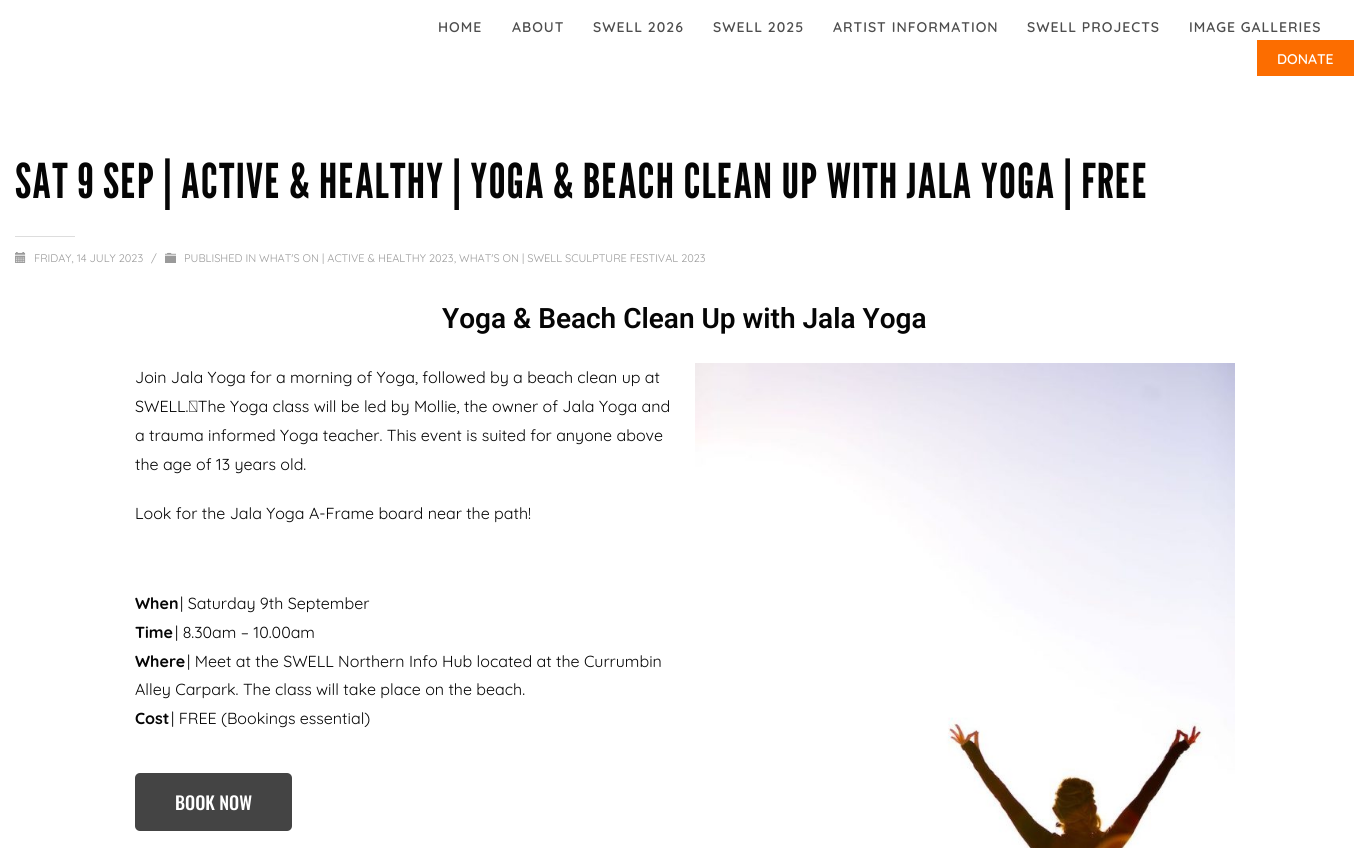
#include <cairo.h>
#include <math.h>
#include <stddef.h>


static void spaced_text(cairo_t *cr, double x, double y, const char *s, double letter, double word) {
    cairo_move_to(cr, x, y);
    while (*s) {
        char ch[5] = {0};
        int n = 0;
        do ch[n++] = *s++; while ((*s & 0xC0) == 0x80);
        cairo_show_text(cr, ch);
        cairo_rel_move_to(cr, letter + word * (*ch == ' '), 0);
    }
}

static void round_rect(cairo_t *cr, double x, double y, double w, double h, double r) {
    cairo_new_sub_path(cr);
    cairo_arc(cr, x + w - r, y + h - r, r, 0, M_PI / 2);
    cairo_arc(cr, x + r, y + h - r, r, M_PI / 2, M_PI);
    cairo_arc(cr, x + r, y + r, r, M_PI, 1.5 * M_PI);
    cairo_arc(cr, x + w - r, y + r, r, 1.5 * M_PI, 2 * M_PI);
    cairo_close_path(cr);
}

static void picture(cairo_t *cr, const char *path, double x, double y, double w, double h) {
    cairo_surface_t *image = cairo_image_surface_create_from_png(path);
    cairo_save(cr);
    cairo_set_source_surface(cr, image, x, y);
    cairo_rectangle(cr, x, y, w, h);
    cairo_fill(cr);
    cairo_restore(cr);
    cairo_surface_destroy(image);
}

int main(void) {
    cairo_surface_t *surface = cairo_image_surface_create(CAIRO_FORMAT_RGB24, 1369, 848);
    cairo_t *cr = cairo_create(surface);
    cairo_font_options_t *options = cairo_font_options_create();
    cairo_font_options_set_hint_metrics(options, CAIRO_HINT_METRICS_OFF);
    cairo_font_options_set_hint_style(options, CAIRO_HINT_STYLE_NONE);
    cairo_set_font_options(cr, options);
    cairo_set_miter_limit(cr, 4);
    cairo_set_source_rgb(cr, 1, 1, 1);
    cairo_paint(cr);
    cairo_select_font_face(cr, "Quicksand SemiBold", CAIRO_FONT_SLANT_NORMAL, CAIRO_FONT_WEIGHT_NORMAL);
    cairo_set_font_size(cr, 14);
    cairo_set_source_rgb(cr, 0.302, 0.302, 0.302);
    spaced_text(cr, 438, 32, "HOME", 1, 0);
    spaced_text(cr, 512, 32, "ABOUT", 1, 0);
    spaced_text(cr, 593, 32, "SWELL 2026", 1, 0);
    spaced_text(cr, 713, 32, "SWELL 2025", 1, 0);
    spaced_text(cr, 833, 32, "ARTIST INFORMATION", 1, 0);
    spaced_text(cr, 1027, 32, "SWELL PROJECTS", 1, 0);
    spaced_text(cr, 1189, 32, "IMAGE GALLERIES", 1, 0);
    cairo_set_source_rgb(cr, 0.988, 0.427, 0);
    cairo_rectangle(cr, 1257, 40, 97, 36);
    cairo_fill(cr);
    cairo_set_source_rgb(cr, 1, 1, 1);
    cairo_move_to(cr, 1277, 64);
    cairo_show_text(cr, "DONATE");
    cairo_select_font_face(cr, "League Gothic", CAIRO_FONT_SLANT_NORMAL, CAIRO_FONT_WEIGHT_NORMAL);
    cairo_set_font_size(cr, 48);
    cairo_set_source_rgb(cr, 0.02, 0.02, 0.02);
    spaced_text(cr, 15, 198, "SAT 9 SEP | ACTIVE & HEALTHY | YOGA & BEACH CLEAN UP WITH JALA YOGA | FREE", 1, 0);
    cairo_set_source_rgb(cr, 0.867, 0.867, 0.867);
    cairo_rectangle(cr, 15, 236, 60, 1);
    cairo_fill(cr);
    picture(cr, "img1.png", 15, 252, 11, 11);
    cairo_select_font_face(cr, "Quicksand", CAIRO_FONT_SLANT_NORMAL, CAIRO_FONT_WEIGHT_NORMAL);
    cairo_set_font_size(cr, 11);
    cairo_set_source_rgb(cr, 0.604, 0.604, 0.604);
    cairo_move_to(cr, 34, 262);
    cairo_show_text(cr, "FRIDAY, 14 JULY 2023");
    cairo_move_to(cr, 151, 262);
    cairo_show_text(cr, "/");
    picture(cr, "img2.png", 165, 252, 11, 11);
    cairo_move_to(cr, 184, 262);
    cairo_show_text(cr, "PUBLISHED IN");
    cairo_move_to(cr, 259, 262);
    cairo_show_text(cr, "WHAT'S ON | ACTIVE & HEALTHY 2023");
    cairo_move_to(cr, 454, 262);
    cairo_show_text(cr, ",");
    cairo_move_to(cr, 459, 262);
    cairo_show_text(cr, "WHAT'S ON | SWELL SCULPTURE FESTIVAL 2023");
    cairo_select_font_face(cr, "Roboto SemiBold", CAIRO_FONT_SLANT_NORMAL, CAIRO_FONT_WEIGHT_NORMAL);
    cairo_set_font_size(cr, 28);
    cairo_set_source_rgb(cr, 0.02, 0.02, 0.02);
    cairo_move_to(cr, 442, 328);
    cairo_show_text(cr, "Yoga & Beach Clean Up with Jala Yoga");
    cairo_select_font_face(cr, "Quicksand", CAIRO_FONT_SLANT_NORMAL, CAIRO_FONT_WEIGHT_NORMAL);
    cairo_set_font_size(cr, 16);
    cairo_move_to(cr, 135, 383);
    cairo_show_text(cr, "Join Jala Yoga for a morning of Yoga, followed by a beach clean up at");
    cairo_move_to(cr, 135, 412);
    cairo_show_text(cr, "SWELL. The Yoga class will be led by Mollie, the owner of Jala Yoga and");
    cairo_move_to(cr, 135, 441);
    cairo_show_text(cr, "a trauma informed Yoga teacher. This event is suited for anyone above");
    cairo_move_to(cr, 135, 470);
    cairo_show_text(cr, "the age of 13 years old.");
    cairo_move_to(cr, 135, 519);
    cairo_show_text(cr, "Look for the Jala Yoga A-Frame board near the path!");
    cairo_select_font_face(cr, "Quicksand", CAIRO_FONT_SLANT_NORMAL, CAIRO_FONT_WEIGHT_BOLD);
    cairo_move_to(cr, 135, 609);
    cairo_show_text(cr, "When");
    cairo_select_font_face(cr, "Quicksand", CAIRO_FONT_SLANT_NORMAL, CAIRO_FONT_WEIGHT_NORMAL);
    cairo_move_to(cr, 180, 609);
    cairo_show_text(cr, "| Saturday 9th September");
    cairo_select_font_face(cr, "Quicksand", CAIRO_FONT_SLANT_NORMAL, CAIRO_FONT_WEIGHT_BOLD);
    cairo_move_to(cr, 135, 638);
    cairo_show_text(cr, "Time");
    cairo_select_font_face(cr, "Quicksand", CAIRO_FONT_SLANT_NORMAL, CAIRO_FONT_WEIGHT_NORMAL);
    cairo_move_to(cr, 175, 638);
    cairo_show_text(cr, "| 8.30am – 10.00am");
    cairo_select_font_face(cr, "Quicksand", CAIRO_FONT_SLANT_NORMAL, CAIRO_FONT_WEIGHT_BOLD);
    cairo_move_to(cr, 135, 667);
    cairo_show_text(cr, "Where");
    cairo_select_font_face(cr, "Quicksand", CAIRO_FONT_SLANT_NORMAL, CAIRO_FONT_WEIGHT_NORMAL);
    cairo_move_to(cr, 187, 667);
    cairo_show_text(cr, "| Meet at the SWELL Northern Info Hub located at the Currumbin");
    cairo_move_to(cr, 135, 695);
    cairo_show_text(cr, "Alley Carpark. The class will take place on the beach.");
    cairo_select_font_face(cr, "Quicksand", CAIRO_FONT_SLANT_NORMAL, CAIRO_FONT_WEIGHT_BOLD);
    cairo_move_to(cr, 135, 724);
    cairo_show_text(cr, "Cost");
    cairo_select_font_face(cr, "Quicksand", CAIRO_FONT_SLANT_NORMAL, CAIRO_FONT_WEIGHT_NORMAL);
    cairo_move_to(cr, 171, 724);
    cairo_show_text(cr, "| FREE (Bookings essential)");
    cairo_set_source_rgb(cr, 0.267, 0.267, 0.267);
    round_rect(cr, 135, 773, 157, 58, 5);
    cairo_fill(cr);
    cairo_select_font_face(cr, "Oswald Medium", CAIRO_FONT_SLANT_NORMAL, CAIRO_FONT_WEIGHT_NORMAL);
    cairo_set_font_size(cr, 18);
    cairo_set_source_rgb(cr, 1, 1, 1);
    cairo_move_to(cr, 175, 810);
    cairo_show_text(cr, "BOOK NOW");
    picture(cr, "img3.png", 695, 363, 540, 485);
    cairo_surface_write_to_png(surface, "page.png");
    cairo_font_options_destroy(options);
    cairo_destroy(cr);
    cairo_surface_destroy(surface);
    return 0;
}
